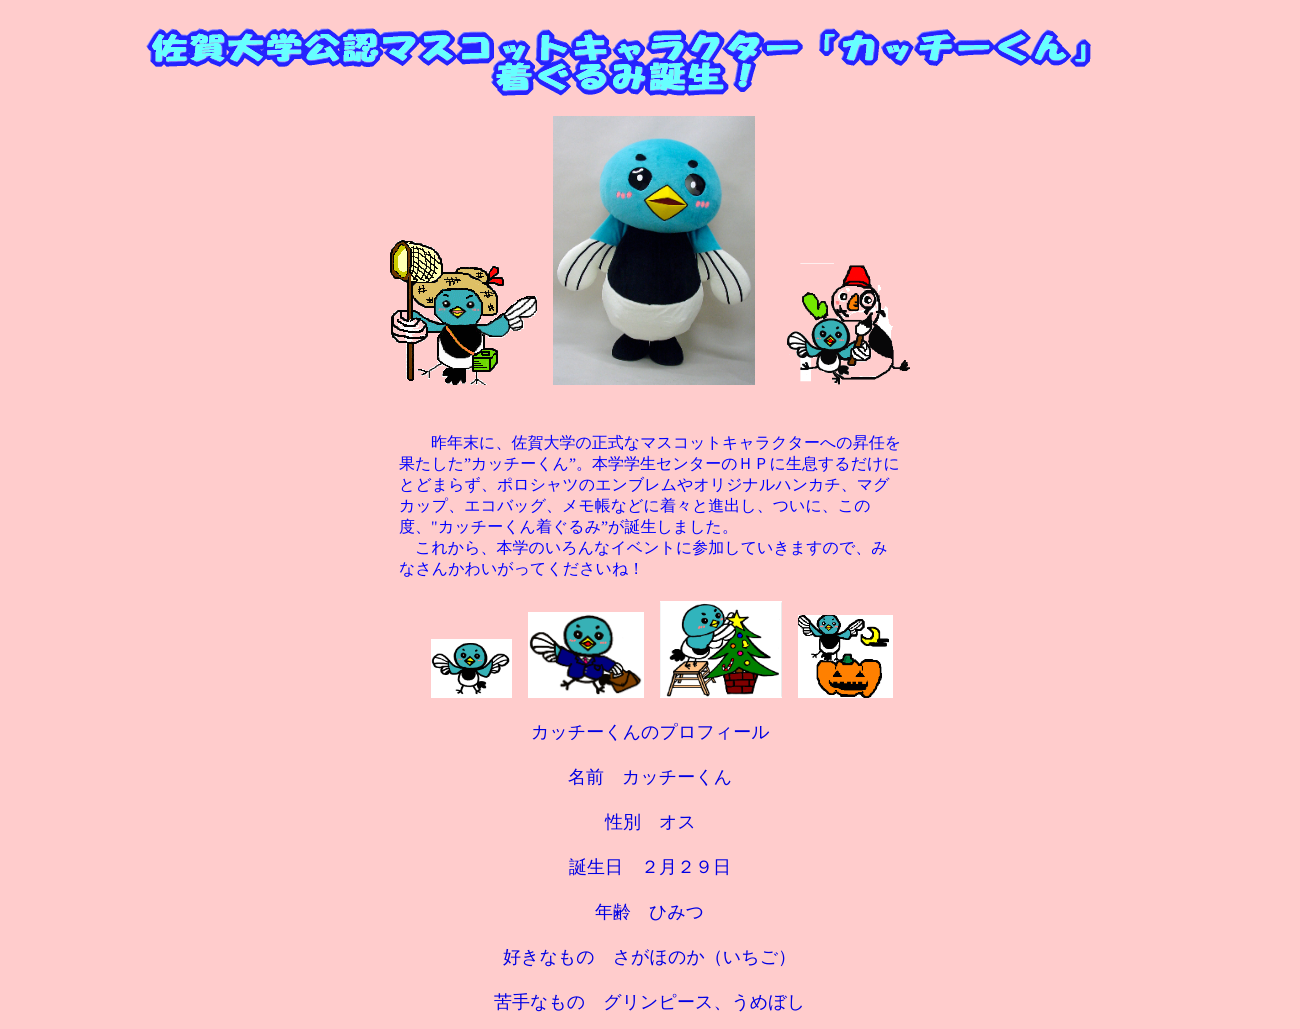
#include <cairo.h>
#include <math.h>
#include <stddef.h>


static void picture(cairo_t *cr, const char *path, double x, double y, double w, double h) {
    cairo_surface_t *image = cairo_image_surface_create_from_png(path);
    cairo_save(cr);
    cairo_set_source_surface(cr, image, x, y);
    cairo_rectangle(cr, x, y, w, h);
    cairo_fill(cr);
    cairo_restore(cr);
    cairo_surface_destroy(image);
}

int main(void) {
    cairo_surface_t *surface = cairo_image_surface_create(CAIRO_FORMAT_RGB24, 1300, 1029);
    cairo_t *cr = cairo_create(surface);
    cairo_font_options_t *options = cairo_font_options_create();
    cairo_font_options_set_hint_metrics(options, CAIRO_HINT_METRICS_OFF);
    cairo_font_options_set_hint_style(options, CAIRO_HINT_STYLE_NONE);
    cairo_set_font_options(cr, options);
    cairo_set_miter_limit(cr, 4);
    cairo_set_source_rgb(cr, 1, 0.8, 0.8);
    cairo_paint(cr);
    picture(cr, "img1.png", 146, 28, 945, 68);
    picture(cr, "img2.png", 390, 240, 147, 145);
    picture(cr, "img3.png", 553, 116, 202, 269);
    picture(cr, "img4.png", 787, 263, 123, 122);
    cairo_select_font_face(cr, "WenQuanYi Zen Hei Medium", CAIRO_FONT_SLANT_NORMAL, CAIRO_FONT_WEIGHT_NORMAL);
    cairo_set_font_size(cr, 16);
    cairo_set_source_rgb(cr, 0, 0, 1);
    cairo_move_to(cr, 431, 448);
    cairo_show_text(cr, "昨年末に、佐賀大学の正式なマスコットキャラクターへの昇任を");
    cairo_move_to(cr, 399, 469);
    cairo_show_text(cr, "果たした");
    cairo_select_font_face(cr, "Liberation Serif", CAIRO_FONT_SLANT_NORMAL, CAIRO_FONT_WEIGHT_NORMAL);
    cairo_move_to(cr, 464, 469);
    cairo_show_text(cr, "”");
    cairo_select_font_face(cr, "WenQuanYi Zen Hei Medium", CAIRO_FONT_SLANT_NORMAL, CAIRO_FONT_WEIGHT_NORMAL);
    cairo_move_to(cr, 471, 469);
    cairo_show_text(cr, "カッチーくん");
    cairo_select_font_face(cr, "Liberation Serif", CAIRO_FONT_SLANT_NORMAL, CAIRO_FONT_WEIGHT_NORMAL);
    cairo_move_to(cr, 569, 469);
    cairo_show_text(cr, "”");
    cairo_select_font_face(cr, "WenQuanYi Zen Hei Medium", CAIRO_FONT_SLANT_NORMAL, CAIRO_FONT_WEIGHT_NORMAL);
    cairo_move_to(cr, 576, 469);
    cairo_show_text(cr, "。本学学生センターのＨＰに生息するだけに");
    cairo_move_to(cr, 399, 490);
    cairo_show_text(cr, "とどまらず、ポロシャツのエンブレムやオリジナルハンカチ、マグ");
    cairo_move_to(cr, 399, 511);
    cairo_show_text(cr, "カップ、エコバッグ、メモ帳などに着々と進出し、ついに、この");
    cairo_move_to(cr, 399, 532);
    cairo_show_text(cr, "度、");
    cairo_select_font_face(cr, "Liberation Serif", CAIRO_FONT_SLANT_NORMAL, CAIRO_FONT_WEIGHT_NORMAL);
    cairo_move_to(cr, 431, 532);
    cairo_show_text(cr, "\"");
    cairo_select_font_face(cr, "WenQuanYi Zen Hei Medium", CAIRO_FONT_SLANT_NORMAL, CAIRO_FONT_WEIGHT_NORMAL);
    cairo_move_to(cr, 438, 532);
    cairo_show_text(cr, "カッチーくん着ぐるみ");
    cairo_select_font_face(cr, "Liberation Serif", CAIRO_FONT_SLANT_NORMAL, CAIRO_FONT_WEIGHT_NORMAL);
    cairo_move_to(cr, 601, 532);
    cairo_show_text(cr, "”");
    cairo_select_font_face(cr, "WenQuanYi Zen Hei Medium", CAIRO_FONT_SLANT_NORMAL, CAIRO_FONT_WEIGHT_NORMAL);
    cairo_move_to(cr, 608, 532);
    cairo_show_text(cr, "が誕生しました。");
    cairo_move_to(cr, 415, 553);
    cairo_show_text(cr, "これから、本学のいろんなイベントに参加していきますので、み");
    cairo_move_to(cr, 399, 574);
    cairo_show_text(cr, "なさんかわいがってくださいね！");
    picture(cr, "img5.png", 431, 639, 81, 59);
    picture(cr, "img6.png", 528, 612, 116, 86);
    picture(cr, "img7.png", 660, 601, 122, 97);
    picture(cr, "img8.png", 798, 615, 95, 83);
    cairo_set_font_size(cr, 18);
    cairo_set_source_rgb(cr, 0, 0, 0.89);
    cairo_move_to(cr, 531, 738);
    cairo_show_text(cr, "カッチーくんのプロフィール");
    cairo_move_to(cr, 568, 783);
    cairo_show_text(cr, "名前　カッチーくん");
    cairo_move_to(cr, 605, 828);
    cairo_show_text(cr, "性別　オス");
    cairo_move_to(cr, 569, 873);
    cairo_show_text(cr, "誕生日　２月２９日");
    cairo_move_to(cr, 595, 918);
    cairo_show_text(cr, "年齢　ひみつ");
    cairo_move_to(cr, 503, 963);
    cairo_show_text(cr, "好きなもの　さがほのか（いちご）");
    cairo_move_to(cr, 494, 1008);
    cairo_show_text(cr, "苦手なもの　グリンピース、うめぼし");
    cairo_surface_write_to_png(surface, "page.png");
    cairo_font_options_destroy(options);
    cairo_destroy(cr);
    cairo_surface_destroy(surface);
    return 0;
}
